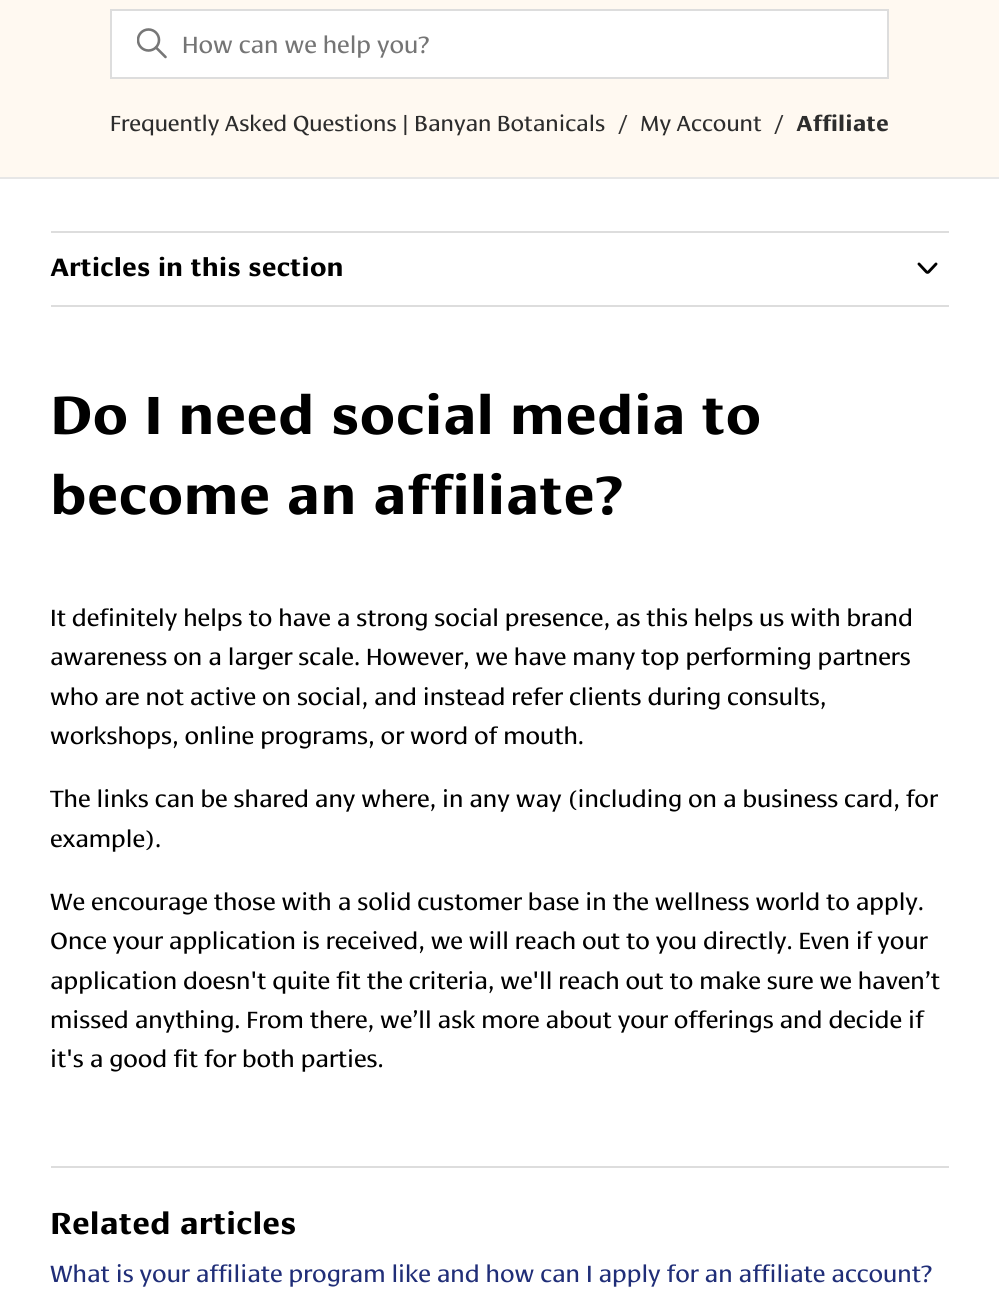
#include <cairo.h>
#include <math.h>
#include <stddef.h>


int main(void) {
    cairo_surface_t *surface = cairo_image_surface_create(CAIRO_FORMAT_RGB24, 999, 1303);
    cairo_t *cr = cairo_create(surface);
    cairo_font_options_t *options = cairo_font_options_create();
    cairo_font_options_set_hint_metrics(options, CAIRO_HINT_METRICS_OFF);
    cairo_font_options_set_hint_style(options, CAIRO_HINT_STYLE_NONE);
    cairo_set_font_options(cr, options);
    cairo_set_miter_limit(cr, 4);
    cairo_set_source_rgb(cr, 1, 1, 1);
    cairo_paint(cr);
    cairo_set_source_rgb(cr, 1, 0.976, 0.945);
    cairo_rectangle(cr, 0, 0, 999, 177);
    cairo_fill(cr);
    cairo_set_source_rgb(cr, 0.906, 0.906, 0.906);
    cairo_rectangle(cr, 0, 177, 999, 2);
    cairo_fill(cr);
    cairo_set_source_rgb(cr, 1, 1, 1);
    cairo_rectangle(cr, 111, 10, 777, 68);
    cairo_fill_preserve(cr);
    cairo_set_source_rgb(cr, 0.867, 0.867, 0.867);
    cairo_stroke(cr);
    cairo_save(cr);
    cairo_rectangle(cr, 137, 28, 31, 32);
    cairo_clip(cr);
    cairo_arc(cr, 148.5, 40, 10.5, 0, 2 * M_PI);
    cairo_set_source_rgb(cr, 0.467, 0.467, 0.467);
    cairo_set_line_width(cr, 2.6);
    cairo_stroke(cr);
    cairo_restore(cr);
    cairo_new_path(cr);
    cairo_move_to(cr, 165.5, 57);
    cairo_line_to(cr, 156, 47.5);
    cairo_set_source_rgb(cr, 0.467, 0.467, 0.467);
    cairo_set_line_width(cr, 2.6);
    cairo_set_line_cap(cr, CAIRO_LINE_CAP_ROUND);
    cairo_stroke(cr);
    cairo_select_font_face(cr, "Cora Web", CAIRO_FONT_SLANT_NORMAL, CAIRO_FONT_WEIGHT_NORMAL);
    cairo_set_font_size(cr, 24.5);
    cairo_set_source_rgb(cr, 0.459, 0.459, 0.459);
    cairo_move_to(cr, 182, 53);
    cairo_show_text(cr, "How can we help you?");
    cairo_set_font_size(cr, 22.75);
    cairo_set_source_rgb(cr, 0.176, 0.176, 0.176);
    cairo_move_to(cr, 110, 131);
    cairo_show_text(cr, "Frequently Asked Questions | Banyan Botanicals");
    cairo_set_source_rgb(cr, 0.2, 0.2, 0.2);
    cairo_move_to(cr, 618, 131);
    cairo_show_text(cr, "/");
    cairo_set_source_rgb(cr, 0.176, 0.176, 0.176);
    cairo_move_to(cr, 640, 131);
    cairo_show_text(cr, "My Account");
    cairo_set_source_rgb(cr, 0.2, 0.2, 0.2);
    cairo_move_to(cr, 774, 131);
    cairo_show_text(cr, "/");
    cairo_select_font_face(cr, "Cora Web", CAIRO_FONT_SLANT_NORMAL, CAIRO_FONT_WEIGHT_BOLD);
    cairo_set_source_rgb(cr, 0.176, 0.176, 0.176);
    cairo_move_to(cr, 796, 131);
    cairo_show_text(cr, "Affiliate");
    cairo_set_source_rgb(cr, 0.867, 0.867, 0.867);
    cairo_rectangle(cr, 51, 231, 898, 2);
    cairo_fill(cr);
    cairo_rectangle(cr, 51, 305, 898, 2);
    cairo_fill(cr);
    cairo_set_font_size(cr, 26.25);
    cairo_set_source_rgb(cr, 0, 0, 0);
    cairo_move_to(cr, 50, 276);
    cairo_show_text(cr, "Articles in this section");
    cairo_new_path(cr);
    cairo_move_to(cr, 919, 264);
    cairo_line_to(cr, 926.5, 272);
    cairo_curve_to(cr, 927, 272.5, 928, 272.5, 928.5, 272);
    cairo_line_to(cr, 936, 264);
    cairo_set_line_width(cr, 2.9);
    cairo_stroke(cr);
    cairo_set_font_size(cr, 56);
    cairo_move_to(cr, 50, 434);
    cairo_show_text(cr, "Do I need social media to");
    cairo_move_to(cr, 50, 514);
    cairo_show_text(cr, "become an affiliate?");
    cairo_select_font_face(cr, "Cora Web", CAIRO_FONT_SLANT_NORMAL, CAIRO_FONT_WEIGHT_NORMAL);
    cairo_set_font_size(cr, 24.5);
    cairo_move_to(cr, 50, 626);
    cairo_show_text(cr, "It definitely helps to have a strong social presence, as this helps us with brand");
    cairo_move_to(cr, 50, 665);
    cairo_show_text(cr, "awareness on a larger scale. However, we have many top performing partners");
    cairo_move_to(cr, 50, 705);
    cairo_show_text(cr, "who are not active on social, and instead refer clients during consults,");
    cairo_move_to(cr, 50, 744);
    cairo_show_text(cr, "workshops, online programs, or word of mouth.");
    cairo_move_to(cr, 50, 807);
    cairo_show_text(cr, "The links can be shared any where, in any way (including on a business card, for");
    cairo_move_to(cr, 50, 847);
    cairo_show_text(cr, "example).");
    cairo_move_to(cr, 50, 910);
    cairo_show_text(cr, "We encourage those with a solid customer base in the wellness world to apply.");
    cairo_move_to(cr, 50, 949);
    cairo_show_text(cr, "Once your application is received, we will reach out to you directly. Even if your");
    cairo_move_to(cr, 50, 989);
    cairo_show_text(cr, "application doesn't quite fit the criteria, we'll reach out to make sure we haven’t");
    cairo_move_to(cr, 50, 1028);
    cairo_show_text(cr, "missed anything. From there, we’ll ask more about your offerings and decide if");
    cairo_move_to(cr, 50, 1067);
    cairo_show_text(cr, "it's a good fit for both parties.");
    cairo_set_source_rgb(cr, 0.867, 0.867, 0.867);
    cairo_rectangle(cr, 51, 1166, 898, 2);
    cairo_fill(cr);
    cairo_select_font_face(cr, "Cora Web", CAIRO_FONT_SLANT_NORMAL, CAIRO_FONT_WEIGHT_BOLD);
    cairo_set_font_size(cr, 31.5);
    cairo_set_source_rgb(cr, 0, 0, 0);
    cairo_move_to(cr, 50, 1234);
    cairo_show_text(cr, "Related articles");
    cairo_select_font_face(cr, "Cora Web", CAIRO_FONT_SLANT_NORMAL, CAIRO_FONT_WEIGHT_NORMAL);
    cairo_set_font_size(cr, 24.5);
    cairo_set_source_rgb(cr, 0.125, 0.18, 0.471);
    cairo_move_to(cr, 50, 1282);
    cairo_show_text(cr, "What is your affiliate program like and how can I apply for an affiliate account?");
    cairo_surface_write_to_png(surface, "page.png");
    cairo_font_options_destroy(options);
    cairo_destroy(cr);
    cairo_surface_destroy(surface);
    return 0;
}
